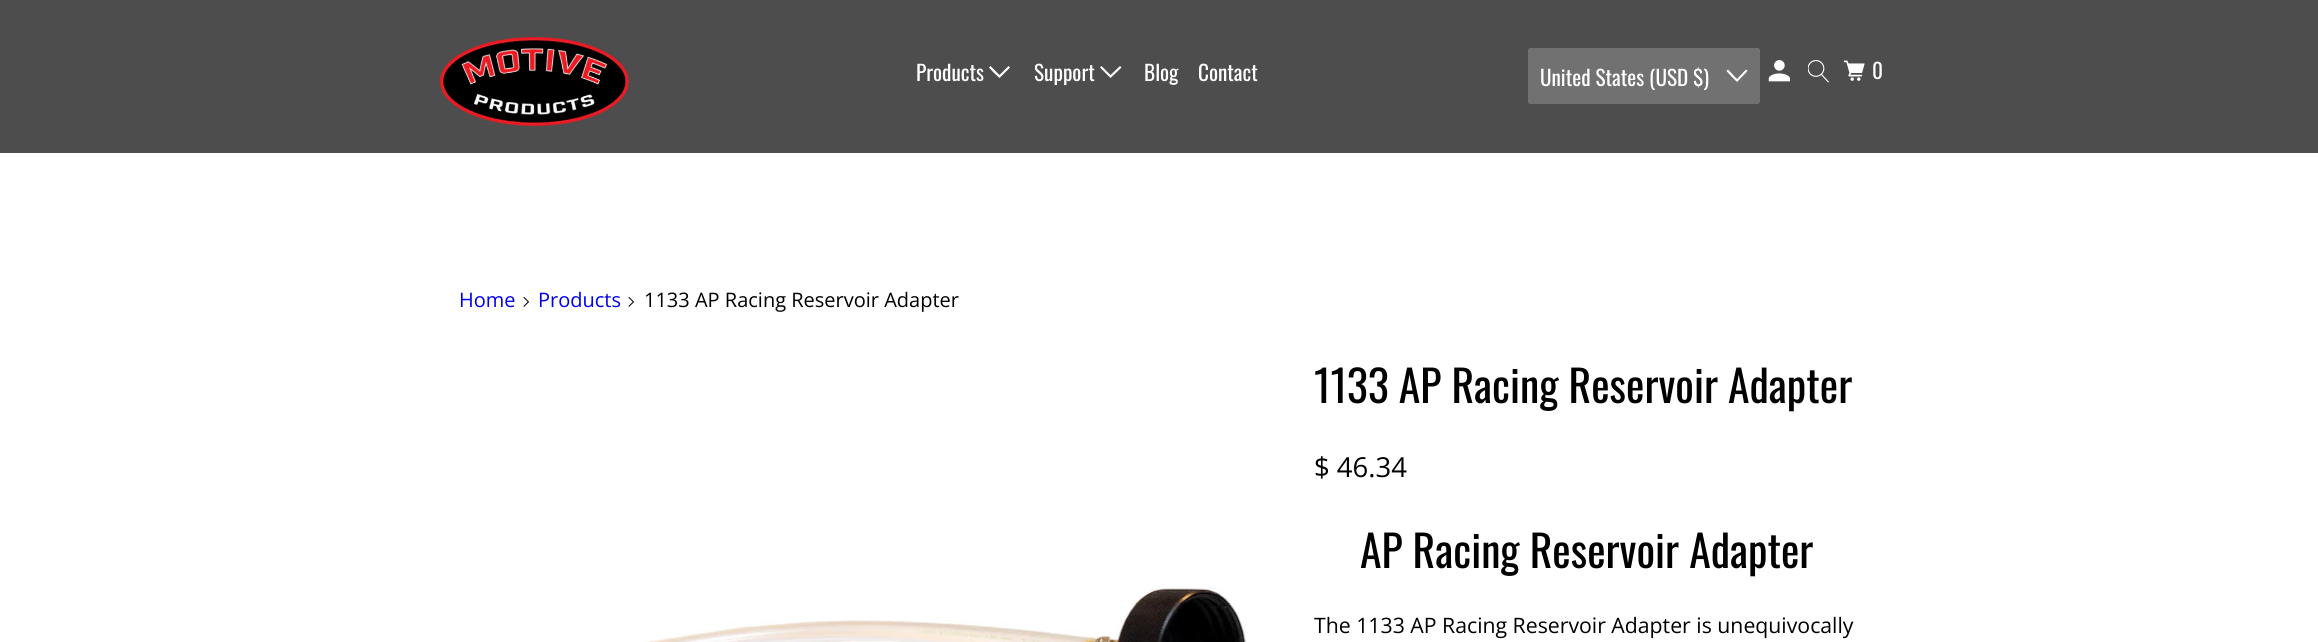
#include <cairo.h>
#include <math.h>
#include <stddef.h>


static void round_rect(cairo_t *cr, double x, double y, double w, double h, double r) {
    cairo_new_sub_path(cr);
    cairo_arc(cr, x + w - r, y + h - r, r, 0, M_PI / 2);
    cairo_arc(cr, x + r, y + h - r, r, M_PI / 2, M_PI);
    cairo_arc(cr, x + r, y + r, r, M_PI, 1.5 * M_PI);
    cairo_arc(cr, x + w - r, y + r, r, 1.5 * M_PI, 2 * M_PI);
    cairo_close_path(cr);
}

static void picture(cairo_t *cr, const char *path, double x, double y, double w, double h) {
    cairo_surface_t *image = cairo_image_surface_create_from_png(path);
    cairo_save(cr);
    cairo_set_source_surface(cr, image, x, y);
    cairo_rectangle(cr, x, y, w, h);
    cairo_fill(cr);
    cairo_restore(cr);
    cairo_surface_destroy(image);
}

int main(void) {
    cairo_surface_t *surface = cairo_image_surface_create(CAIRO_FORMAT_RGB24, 2318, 642);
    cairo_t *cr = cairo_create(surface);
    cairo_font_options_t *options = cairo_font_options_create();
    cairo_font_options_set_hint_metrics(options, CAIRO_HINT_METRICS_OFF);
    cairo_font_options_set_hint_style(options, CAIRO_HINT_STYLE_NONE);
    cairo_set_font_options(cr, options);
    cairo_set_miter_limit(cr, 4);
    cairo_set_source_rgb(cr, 1, 1, 1);
    cairo_paint(cr);
    cairo_set_source_rgb(cr, 0.302, 0.302, 0.302);
    cairo_rectangle(cr, 0, 0, 2318, 153);
    cairo_fill(cr);
    picture(cr, "img1.png", 439, 36, 191, 91);
    cairo_select_font_face(cr, "Oswald", CAIRO_FONT_SLANT_NORMAL, CAIRO_FONT_WEIGHT_NORMAL);
    cairo_set_font_size(cr, 21.25);
    cairo_set_source_rgb(cr, 1, 1, 1);
    cairo_move_to(cr, 916, 81);
    cairo_show_text(cr, "Products");
    cairo_new_path(cr);
    cairo_move_to(cr, 994, 73);
    cairo_line_to(cr, 989, 67.5);
    cairo_line_to(cr, 990.5, 66);
    cairo_line_to(cr, 999.5, 75);
    cairo_line_to(cr, 1008.5, 66);
    cairo_line_to(cr, 1010, 67.5);
    cairo_line_to(cr, 999.5, 78);
    cairo_close_path(cr);
    cairo_fill(cr);
    cairo_move_to(cr, 1034, 81);
    cairo_show_text(cr, "Support");
    cairo_new_path(cr);
    cairo_move_to(cr, 1105.5, 73);
    cairo_line_to(cr, 1100, 67.5);
    cairo_line_to(cr, 1101.5, 66);
    cairo_line_to(cr, 1110.5, 75);
    cairo_line_to(cr, 1120, 66);
    cairo_line_to(cr, 1121.5, 67.5);
    cairo_line_to(cr, 1110.5, 78);
    cairo_close_path(cr);
    cairo_fill(cr);
    cairo_move_to(cr, 1144, 81);
    cairo_show_text(cr, "Blog");
    cairo_move_to(cr, 1198, 81);
    cairo_show_text(cr, "Contact");
    cairo_set_source_rgb(cr, 0.443, 0.443, 0.443);
    round_rect(cr, 1528, 48, 232, 56, 2.5);
    cairo_fill(cr);
    cairo_set_source_rgb(cr, 1, 1, 1);
    cairo_move_to(cr, 1540, 86);
    cairo_show_text(cr, "United States (USD $)");
    cairo_new_path(cr);
    cairo_move_to(cr, 1731.5, 76.5);
    cairo_line_to(cr, 1726.5, 71);
    cairo_line_to(cr, 1728, 69.5);
    cairo_line_to(cr, 1737, 79);
    cairo_line_to(cr, 1746, 69.5);
    cairo_line_to(cr, 1747.5, 71);
    cairo_line_to(cr, 1737, 82);
    cairo_close_path(cr);
    cairo_fill(cr);
    picture(cr, "img2.png", 1768, 60, 22, 22);
    picture(cr, "img3.png", 1808, 60, 21, 23);
    picture(cr, "img4.png", 1843, 60, 22, 21);
    cairo_move_to(cr, 1872, 79);
    cairo_show_text(cr, "0");
    cairo_select_font_face(cr, "Open Sans", CAIRO_FONT_SLANT_NORMAL, CAIRO_FONT_WEIGHT_NORMAL);
    cairo_set_font_size(cr, 20);
    cairo_set_source_rgb(cr, 0, 0, 0.933);
    cairo_move_to(cr, 459, 307);
    cairo_show_text(cr, "Home");
    picture(cr, "img5.png", 523, 297, 7, 10);
    cairo_move_to(cr, 538, 307);
    cairo_show_text(cr, "Products");
    picture(cr, "img5.png", 628, 297, 7, 10);
    cairo_set_source_rgb(cr, 0, 0, 0);
    cairo_move_to(cr, 644, 307);
    cairo_show_text(cr, "1133 AP Racing Reservoir Adapter");
    picture(cr, "img6.png", 643, 587, 604, 55);
    cairo_select_font_face(cr, "Oswald", CAIRO_FONT_SLANT_NORMAL, CAIRO_FONT_WEIGHT_NORMAL);
    cairo_set_font_size(cr, 43.75);
    cairo_move_to(cr, 1314, 403);
    cairo_show_text(cr, "1133 AP Racing Reservoir Adapter");
    cairo_select_font_face(cr, "Open Sans", CAIRO_FONT_SLANT_NORMAL, CAIRO_FONT_WEIGHT_NORMAL);
    cairo_set_font_size(cr, 27.5);
    cairo_move_to(cr, 1314, 477);
    cairo_show_text(cr, "$ 46.34");
    cairo_select_font_face(cr, "Oswald", CAIRO_FONT_SLANT_NORMAL, CAIRO_FONT_WEIGHT_NORMAL);
    cairo_set_font_size(cr, 43.75);
    cairo_move_to(cr, 1360, 568);
    cairo_show_text(cr, "AP Racing Reservoir Adapter");
    cairo_select_font_face(cr, "Open Sans", CAIRO_FONT_SLANT_NORMAL, CAIRO_FONT_WEIGHT_NORMAL);
    cairo_set_font_size(cr, 21.25);
    cairo_move_to(cr, 1314, 633);
    cairo_show_text(cr, "The 1133 AP Racing Reservoir Adapter is unequivocally");
    cairo_surface_write_to_png(surface, "page.png");
    cairo_font_options_destroy(options);
    cairo_destroy(cr);
    cairo_surface_destroy(surface);
    return 0;
}
